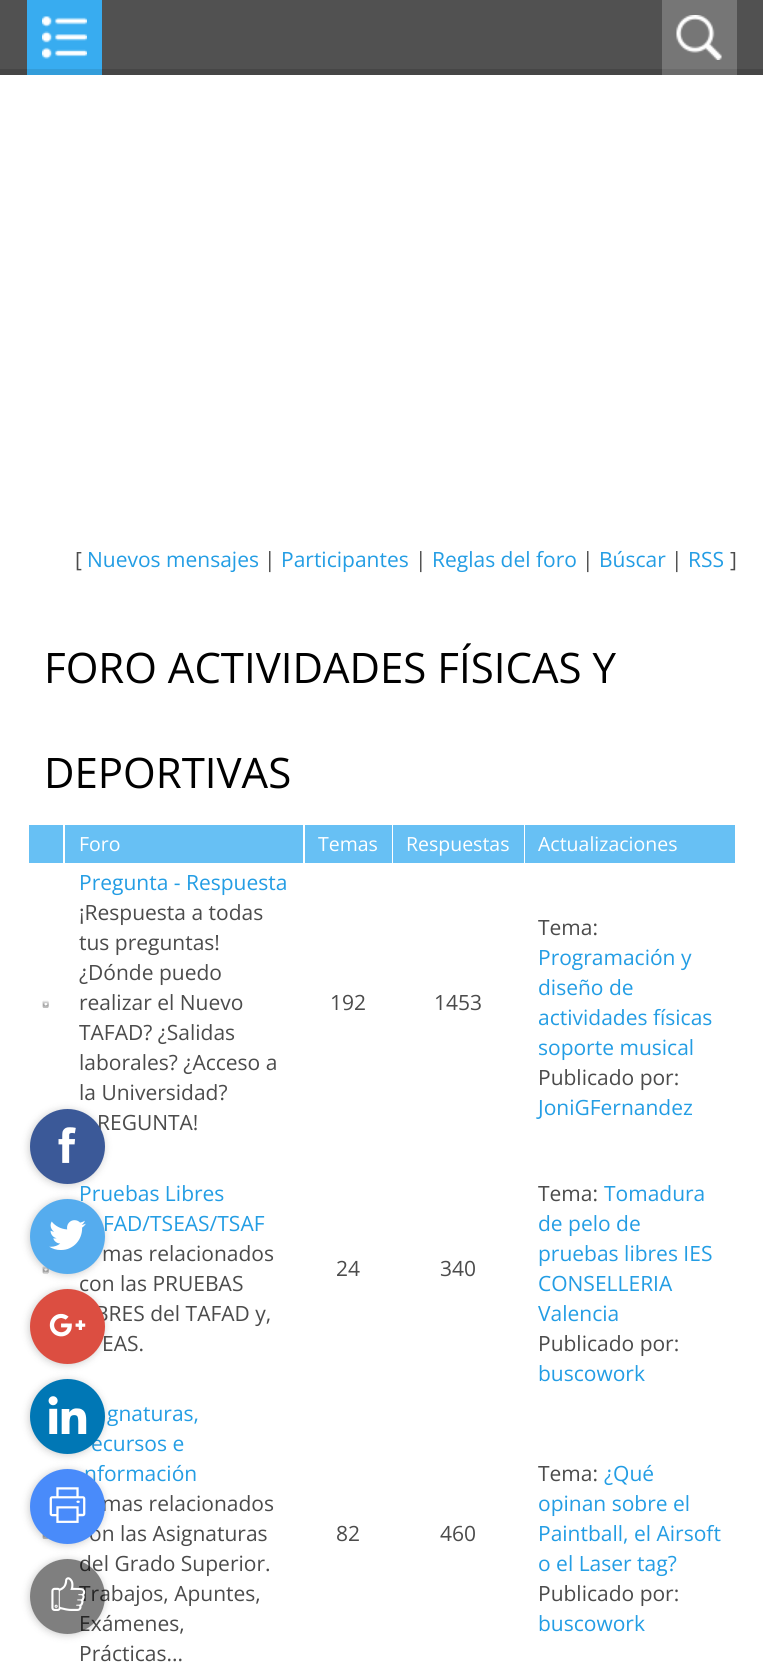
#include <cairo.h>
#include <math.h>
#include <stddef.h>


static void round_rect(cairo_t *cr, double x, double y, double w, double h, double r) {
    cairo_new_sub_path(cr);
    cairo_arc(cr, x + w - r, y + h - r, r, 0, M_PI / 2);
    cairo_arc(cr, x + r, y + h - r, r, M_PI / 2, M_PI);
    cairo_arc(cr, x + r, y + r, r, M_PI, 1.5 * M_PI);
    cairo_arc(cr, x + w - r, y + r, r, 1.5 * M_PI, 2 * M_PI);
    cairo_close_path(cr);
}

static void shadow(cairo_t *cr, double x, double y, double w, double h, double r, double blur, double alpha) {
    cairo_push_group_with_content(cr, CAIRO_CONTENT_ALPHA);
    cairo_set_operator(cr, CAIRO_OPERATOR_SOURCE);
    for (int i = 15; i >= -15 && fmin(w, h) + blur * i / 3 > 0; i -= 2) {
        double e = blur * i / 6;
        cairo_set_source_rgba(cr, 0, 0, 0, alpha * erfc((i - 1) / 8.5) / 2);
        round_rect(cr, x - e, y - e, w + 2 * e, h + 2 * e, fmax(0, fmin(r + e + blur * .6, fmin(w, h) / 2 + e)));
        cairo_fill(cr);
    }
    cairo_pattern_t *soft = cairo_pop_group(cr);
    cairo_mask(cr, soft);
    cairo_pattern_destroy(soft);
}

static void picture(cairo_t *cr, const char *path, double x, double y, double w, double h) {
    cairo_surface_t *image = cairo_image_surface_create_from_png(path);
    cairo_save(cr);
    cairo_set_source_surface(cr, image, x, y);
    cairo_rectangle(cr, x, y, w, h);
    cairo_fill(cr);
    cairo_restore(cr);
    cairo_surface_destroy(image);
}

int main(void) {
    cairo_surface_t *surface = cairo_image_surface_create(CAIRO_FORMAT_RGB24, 763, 1670);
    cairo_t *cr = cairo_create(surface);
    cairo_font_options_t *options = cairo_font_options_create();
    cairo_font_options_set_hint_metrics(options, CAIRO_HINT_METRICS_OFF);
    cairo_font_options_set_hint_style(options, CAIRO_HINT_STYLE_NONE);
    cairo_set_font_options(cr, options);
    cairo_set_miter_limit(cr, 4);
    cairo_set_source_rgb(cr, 1, 1, 1);
    cairo_paint(cr);
    cairo_set_source_rgb(cr, 0.318, 0.318, 0.318);
    cairo_rectangle(cr, 0, 0, 763, 69);
    cairo_fill(cr);
    cairo_set_source_rgb(cr, 0.275, 0.275, 0.275);
    cairo_rectangle(cr, 0, 69, 763, 6);
    cairo_fill(cr);
    cairo_set_source_rgb(cr, 0.22, 0.675, 0.941);
    cairo_rectangle(cr, 27, 0, 75, 69);
    cairo_fill(cr);
    picture(cr, "img1.png", 42, 16, 45, 43);
    cairo_set_source_rgb(cr, 0.2, 0.616, 0.855);
    cairo_rectangle(cr, 27, 69, 75, 6);
    cairo_fill(cr);
    cairo_set_source_rgb(cr, 0.463, 0.463, 0.463);
    cairo_rectangle(cr, 662, 0, 75, 69);
    cairo_fill(cr);
    picture(cr, "img2.png", 676, 15, 46, 45);
    cairo_set_source_rgb(cr, 0.42, 0.42, 0.42);
    cairo_rectangle(cr, 662, 69, 75, 6);
    cairo_fill(cr);
    cairo_select_font_face(cr, "Open Sans", CAIRO_FONT_SLANT_NORMAL, CAIRO_FONT_WEIGHT_NORMAL);
    cairo_set_font_size(cr, 21);
    cairo_set_source_rgb(cr, 0.294, 0.294, 0.294);
    cairo_move_to(cr, 75, 567);
    cairo_show_text(cr, "[");
    cairo_set_source_rgb(cr, 0.137, 0.616, 0.894);
    cairo_move_to(cr, 87, 567);
    cairo_show_text(cr, "Nuevos mensajes");
    cairo_set_source_rgb(cr, 0.294, 0.294, 0.294);
    cairo_move_to(cr, 264, 567);
    cairo_show_text(cr, "|");
    cairo_set_source_rgb(cr, 0.137, 0.616, 0.894);
    cairo_move_to(cr, 281, 567);
    cairo_show_text(cr, "Participantes");
    cairo_set_source_rgb(cr, 0.294, 0.294, 0.294);
    cairo_move_to(cr, 415, 567);
    cairo_show_text(cr, "|");
    cairo_set_source_rgb(cr, 0.137, 0.616, 0.894);
    cairo_move_to(cr, 432, 567);
    cairo_show_text(cr, "Reglas del foro");
    cairo_set_source_rgb(cr, 0.294, 0.294, 0.294);
    cairo_move_to(cr, 582, 567);
    cairo_show_text(cr, "|");
    cairo_set_source_rgb(cr, 0.137, 0.616, 0.894);
    cairo_move_to(cr, 599, 567);
    cairo_show_text(cr, "Búscar");
    cairo_set_source_rgb(cr, 0.294, 0.294, 0.294);
    cairo_move_to(cr, 671, 567);
    cairo_show_text(cr, "|");
    cairo_set_source_rgb(cr, 0.137, 0.616, 0.894);
    cairo_move_to(cr, 688, 567);
    cairo_show_text(cr, "RSS");
    cairo_set_source_rgb(cr, 0.294, 0.294, 0.294);
    cairo_move_to(cr, 730, 567);
    cairo_show_text(cr, "]");
    cairo_set_font_size(cr, 42);
    cairo_set_source_rgb(cr, 0, 0, 0);
    cairo_move_to(cr, 44, 683);
    cairo_show_text(cr, "FORO ACTIVIDADES FÍSICAS Y");
    cairo_move_to(cr, 44, 788);
    cairo_show_text(cr, "DEPORTIVAS");
    cairo_set_source_rgb(cr, 0.404, 0.753, 0.957);
    cairo_rectangle(cr, 29, 825, 34, 38);
    cairo_fill(cr);
    cairo_rectangle(cr, 65, 825, 238, 38);
    cairo_fill(cr);
    cairo_set_font_size(cr, 19.5);
    cairo_set_source_rgb(cr, 1, 1, 1);
    cairo_move_to(cr, 79, 851);
    cairo_show_text(cr, "Foro");
    cairo_set_source_rgb(cr, 0.404, 0.753, 0.957);
    cairo_rectangle(cr, 305, 825, 87, 38);
    cairo_fill(cr);
    cairo_set_source_rgb(cr, 1, 1, 1);
    cairo_move_to(cr, 318, 851);
    cairo_show_text(cr, "Temas");
    cairo_set_source_rgb(cr, 0.404, 0.753, 0.957);
    cairo_rectangle(cr, 393, 825, 131, 38);
    cairo_fill(cr);
    cairo_set_source_rgb(cr, 1, 1, 1);
    cairo_move_to(cr, 406, 851);
    cairo_show_text(cr, "Respuestas");
    cairo_set_source_rgb(cr, 0.404, 0.753, 0.957);
    cairo_rectangle(cr, 525, 825, 210, 38);
    cairo_fill(cr);
    cairo_set_source_rgb(cr, 1, 1, 1);
    cairo_move_to(cr, 538, 851);
    cairo_show_text(cr, "Actualizaciones");
    picture(cr, "img3.png", 42, 1000, 7, 8);
    cairo_set_font_size(cr, 21);
    cairo_set_source_rgb(cr, 0.137, 0.616, 0.894);
    cairo_move_to(cr, 79, 890);
    cairo_show_text(cr, "Pregunta - Respuesta");
    cairo_set_source_rgb(cr, 0.294, 0.294, 0.294);
    cairo_move_to(cr, 79, 920);
    cairo_show_text(cr, "¡Respuesta a todas");
    cairo_move_to(cr, 79, 950);
    cairo_show_text(cr, "tus preguntas!");
    cairo_move_to(cr, 79, 980);
    cairo_show_text(cr, "¿Dónde puedo");
    cairo_move_to(cr, 79, 1010);
    cairo_show_text(cr, "realizar el Nuevo");
    cairo_move_to(cr, 79, 1040);
    cairo_show_text(cr, "TAFAD? ¿Salidas");
    cairo_move_to(cr, 79, 1070);
    cairo_show_text(cr, "laborales? ¿Acceso a");
    cairo_move_to(cr, 79, 1100);
    cairo_show_text(cr, "la Universidad?");
    cairo_move_to(cr, 97, 1130);
    cairo_show_text(cr, "REGUNTA!");
    cairo_move_to(cr, 330, 1010);
    cairo_show_text(cr, "192");
    cairo_move_to(cr, 434, 1010);
    cairo_show_text(cr, "1453");
    cairo_move_to(cr, 538, 935);
    cairo_show_text(cr, "Tema:");
    cairo_set_source_rgb(cr, 0.137, 0.616, 0.894);
    cairo_move_to(cr, 538, 965);
    cairo_show_text(cr, "Programación y");
    cairo_move_to(cr, 538, 995);
    cairo_show_text(cr, "diseño de");
    cairo_move_to(cr, 538, 1025);
    cairo_show_text(cr, "actividades físicas");
    cairo_move_to(cr, 538, 1055);
    cairo_show_text(cr, "soporte musical");
    cairo_set_source_rgb(cr, 0.294, 0.294, 0.294);
    cairo_move_to(cr, 538, 1085);
    cairo_show_text(cr, "Publicado por:");
    cairo_set_source_rgb(cr, 0.137, 0.616, 0.894);
    cairo_move_to(cr, 538, 1115);
    cairo_show_text(cr, "JoniGFernandez");
    picture(cr, "img4.png", 42, 1266, 7, 8);
    cairo_move_to(cr, 79, 1201);
    cairo_show_text(cr, "Pruebas Libres");
    cairo_move_to(cr, 103, 1231);
    cairo_show_text(cr, "FAD/TSEAS/TSAF");
    cairo_set_source_rgb(cr, 0.294, 0.294, 0.294);
    cairo_move_to(cr, 102, 1261);
    cairo_show_text(cr, "mas relacionados");
    cairo_move_to(cr, 79, 1291);
    cairo_show_text(cr, "con las PRUEBAS");
    cairo_move_to(cr, 95, 1321);
    cairo_show_text(cr, "BRES del TAFAD y,");
    cairo_move_to(cr, 102, 1351);
    cairo_show_text(cr, "EAS.");
    cairo_move_to(cr, 336, 1276);
    cairo_show_text(cr, "24");
    cairo_move_to(cr, 440, 1276);
    cairo_show_text(cr, "340");
    cairo_move_to(cr, 538, 1201);
    cairo_show_text(cr, "Tema:");
    cairo_set_source_rgb(cr, 0.137, 0.616, 0.894);
    cairo_move_to(cr, 604, 1201);
    cairo_show_text(cr, "Tomadura");
    cairo_move_to(cr, 538, 1231);
    cairo_show_text(cr, "de pelo de");
    cairo_move_to(cr, 538, 1261);
    cairo_show_text(cr, "pruebas libres IES");
    cairo_move_to(cr, 538, 1291);
    cairo_show_text(cr, "CONSELLERIA");
    cairo_move_to(cr, 538, 1321);
    cairo_show_text(cr, "Valencia");
    cairo_set_source_rgb(cr, 0.294, 0.294, 0.294);
    cairo_move_to(cr, 538, 1351);
    cairo_show_text(cr, "Publicado por:");
    cairo_set_source_rgb(cr, 0.137, 0.616, 0.894);
    cairo_move_to(cr, 538, 1381);
    cairo_show_text(cr, "buscowork");
    picture(cr, "img5.png", 42, 1534, 7, 5);
    cairo_move_to(cr, 107, 1421);
    cairo_show_text(cr, "gnaturas,");
    cairo_move_to(cr, 91, 1451);
    cairo_show_text(cr, "ecursos e");
    cairo_move_to(cr, 84, 1481);
    cairo_show_text(cr, "nformación");
    cairo_set_source_rgb(cr, 0.294, 0.294, 0.294);
    cairo_move_to(cr, 102, 1511);
    cairo_show_text(cr, "mas relacionados");
    cairo_move_to(cr, 89, 1541);
    cairo_show_text(cr, "on las Asignaturas");
    cairo_move_to(cr, 79, 1571);
    cairo_show_text(cr, "del Grado Superior.");
    cairo_move_to(cr, 79, 1601);
    cairo_show_text(cr, "Trabajos, Apuntes,");
    cairo_move_to(cr, 79, 1631);
    cairo_show_text(cr, "Exámenes,");
    cairo_move_to(cr, 79, 1661);
    cairo_show_text(cr, "Prácticas...");
    cairo_move_to(cr, 336, 1541);
    cairo_show_text(cr, "82");
    cairo_move_to(cr, 440, 1541);
    cairo_show_text(cr, "460");
    cairo_move_to(cr, 538, 1481);
    cairo_show_text(cr, "Tema:");
    cairo_set_source_rgb(cr, 0.137, 0.616, 0.894);
    cairo_move_to(cr, 604, 1481);
    cairo_show_text(cr, "¿Qué");
    cairo_move_to(cr, 538, 1511);
    cairo_show_text(cr, "opinan sobre el");
    cairo_move_to(cr, 538, 1541);
    cairo_show_text(cr, "Paintball, el Airsoft");
    cairo_move_to(cr, 538, 1571);
    cairo_show_text(cr, "o el Laser tag?");
    cairo_set_source_rgb(cr, 0.294, 0.294, 0.294);
    cairo_move_to(cr, 538, 1601);
    cairo_show_text(cr, "Publicado por:");
    cairo_set_source_rgb(cr, 0.137, 0.616, 0.894);
    cairo_move_to(cr, 538, 1631);
    cairo_show_text(cr, "buscowork");
    cairo_set_source_rgb(cr, 0, 0, 0);
    shadow(cr, 29, 1110, 75, 75, 37.5, 4, 0.2);
    cairo_set_source_rgb(cr, 0.231, 0.349, 0.596);
    cairo_arc(cr, 67.5, 1146.5, 37.5, 0, 2 * M_PI);
    cairo_fill(cr);
    picture(cr, "img6.png", 58, 1127, 18, 36);
    cairo_set_source_rgb(cr, 0, 0, 0);
    shadow(cr, 29, 1200, 75, 75, 37.5, 4, 0.2);
    cairo_set_source_rgb(cr, 0.333, 0.675, 0.933);
    cairo_arc(cr, 67.5, 1236.5, 37.5, 0, 2 * M_PI);
    cairo_fill(cr);
    picture(cr, "img7.png", 49, 1220, 37, 30);
    cairo_set_source_rgb(cr, 0, 0, 0);
    shadow(cr, 29, 1290, 75, 75, 37.5, 4, 0.2);
    cairo_set_source_rgb(cr, 0.863, 0.306, 0.255);
    cairo_arc(cr, 67.5, 1326.5, 37.5, 0, 2 * M_PI);
    cairo_fill(cr);
    picture(cr, "img8.png", 49, 1313, 37, 24);
    cairo_set_source_rgb(cr, 0, 0, 0);
    shadow(cr, 29, 1380, 75, 75, 37.5, 4, 0.2);
    cairo_set_source_rgb(cr, 0, 0.467, 0.71);
    cairo_arc(cr, 67.5, 1416.5, 37.5, 0, 2 * M_PI);
    cairo_fill(cr);
    picture(cr, "img9.png", 48, 1396, 39, 38);
    cairo_set_source_rgb(cr, 0, 0, 0);
    shadow(cr, 29, 1470, 75, 75, 37.5, 4, 0.2);
    cairo_set_source_rgb(cr, 0.286, 0.545, 0.98);
    cairo_arc(cr, 67.5, 1506.5, 37.5, 0, 2 * M_PI);
    cairo_fill(cr);
    picture(cr, "img10.png", 49, 1487, 37, 36);
    cairo_save(cr);
    cairo_set_fill_rule(cr, CAIRO_FILL_RULE_EVEN_ODD);
    cairo_new_path(cr);
    cairo_move_to(cr, 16, 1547);
    cairo_line_to(cr, 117, 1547);
    cairo_line_to(cr, 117, 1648);
    cairo_line_to(cr, 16, 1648);
    cairo_close_path(cr);
    cairo_move_to(cr, 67.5, 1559);
    cairo_curve_to(cr, 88, 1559, 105, 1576, 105, 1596.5);
    cairo_curve_to(cr, 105, 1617, 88, 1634, 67.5, 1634);
    cairo_curve_to(cr, 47, 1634, 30, 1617, 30, 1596.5);
    cairo_curve_to(cr, 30, 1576, 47, 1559, 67.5, 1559);
    cairo_close_path(cr);
    cairo_clip(cr);
    cairo_set_source_rgb(cr, 0, 0, 0);
    shadow(cr, 29, 1560, 75, 75, 37.5, 4, 0.2);
    cairo_restore(cr);
    cairo_set_source_rgba(cr, 0, 0, 0, 0.5);
    cairo_arc(cr, 67.5, 1596.5, 37.5, 0, 2 * M_PI);
    cairo_fill(cr);
    picture(cr, "img11.png", 51, 1577, 35, 34);
    cairo_surface_write_to_png(surface, "page.png");
    cairo_font_options_destroy(options);
    cairo_destroy(cr);
    cairo_surface_destroy(surface);
    return 0;
}
